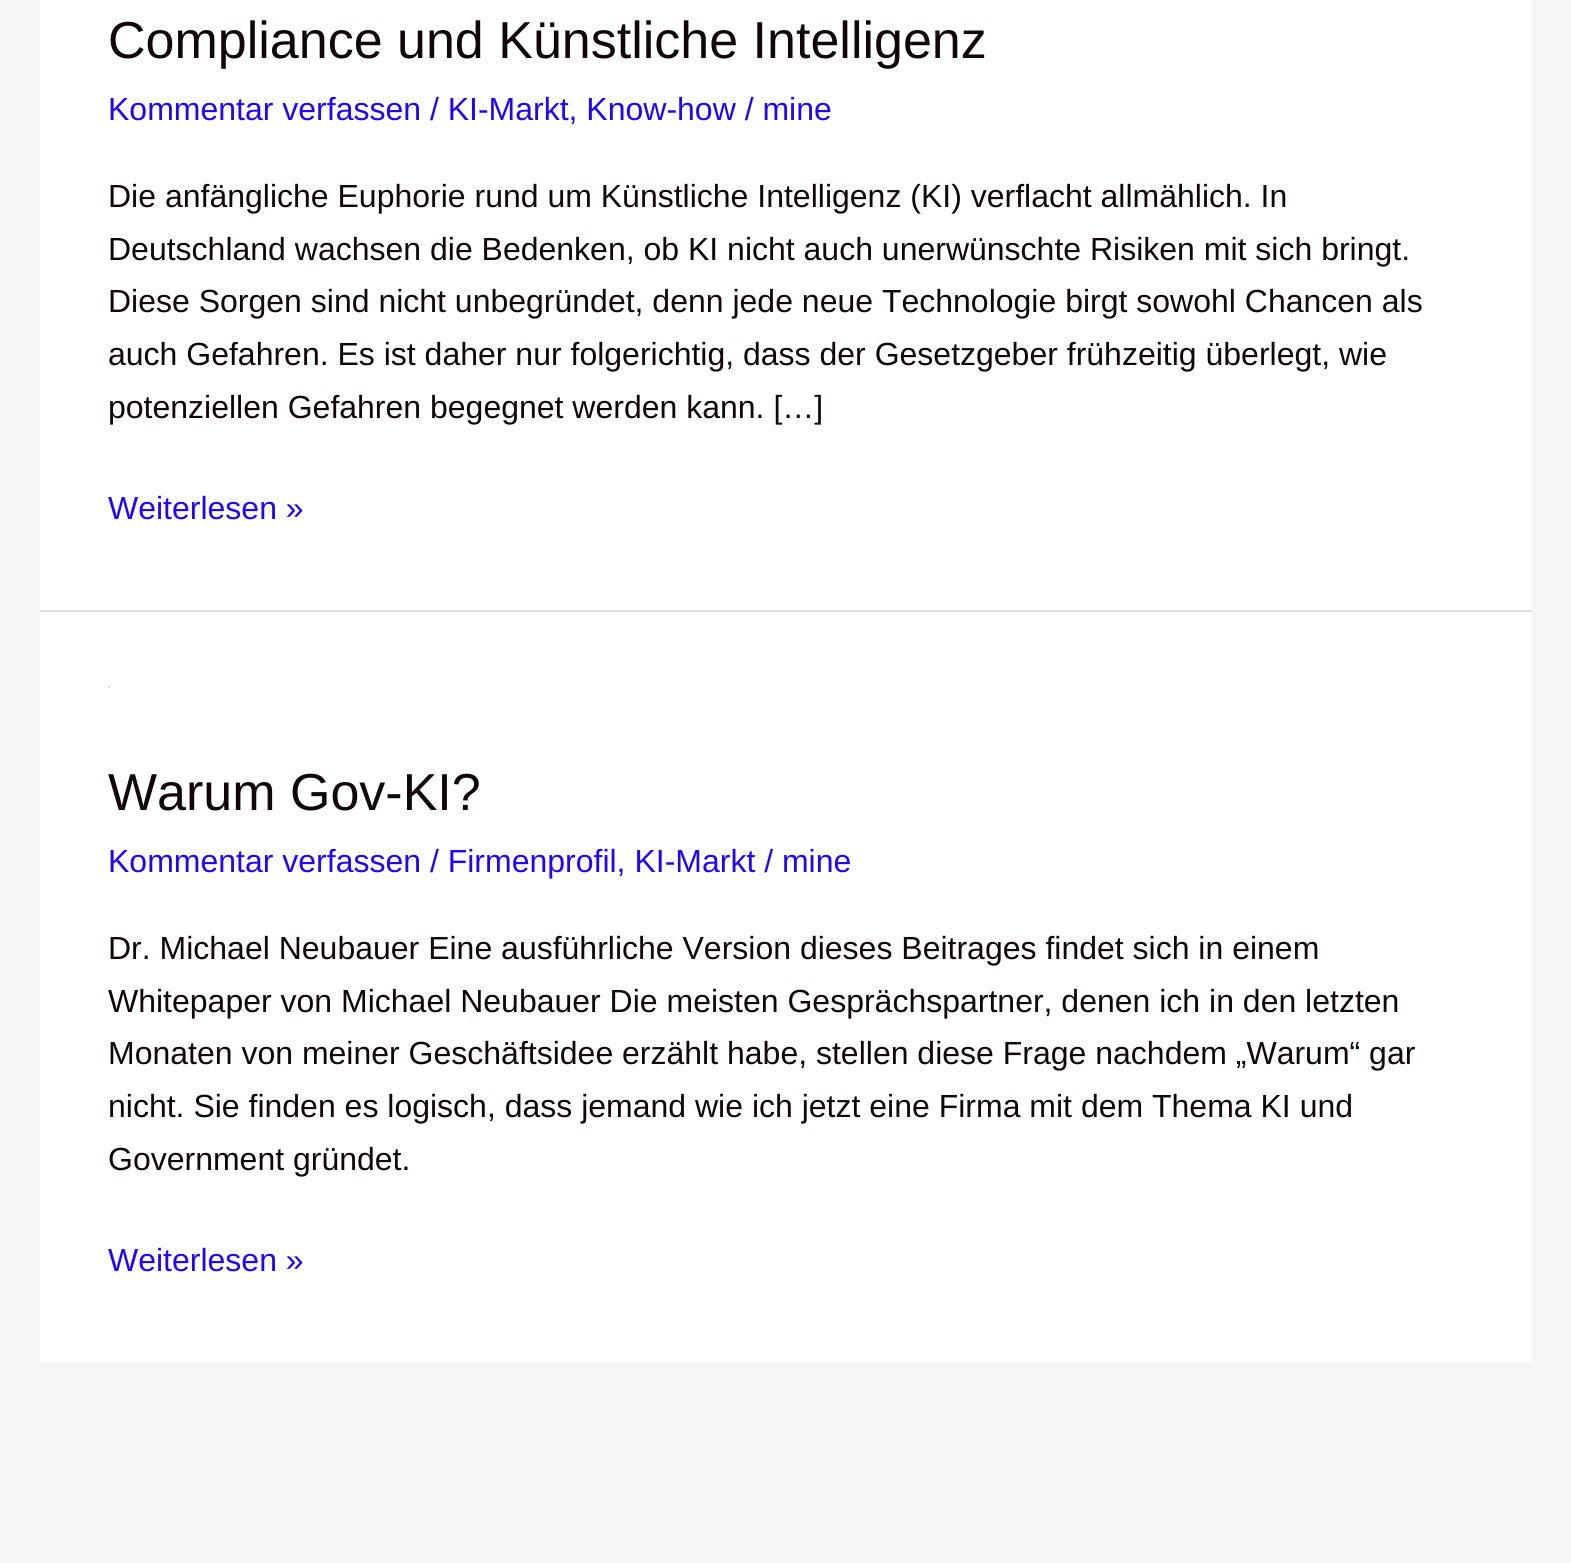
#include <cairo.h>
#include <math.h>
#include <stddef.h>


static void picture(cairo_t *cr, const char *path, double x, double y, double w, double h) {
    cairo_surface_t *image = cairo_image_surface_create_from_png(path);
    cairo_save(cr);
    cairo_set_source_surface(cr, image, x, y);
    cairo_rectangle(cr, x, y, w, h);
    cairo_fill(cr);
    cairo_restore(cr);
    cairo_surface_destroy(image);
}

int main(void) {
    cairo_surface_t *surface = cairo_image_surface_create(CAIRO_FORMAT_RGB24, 1571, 1563);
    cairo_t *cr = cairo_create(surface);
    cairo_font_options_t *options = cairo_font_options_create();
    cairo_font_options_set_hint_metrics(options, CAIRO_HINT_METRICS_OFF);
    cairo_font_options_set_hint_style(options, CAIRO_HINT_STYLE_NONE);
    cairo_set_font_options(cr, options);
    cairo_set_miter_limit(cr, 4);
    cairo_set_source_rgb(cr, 0.961, 0.961, 0.961);
    cairo_paint(cr);
    cairo_set_source_rgb(cr, 1, 1, 1);
    cairo_rectangle(cr, 40, 0, 1492, 610);
    cairo_fill(cr);
    cairo_set_source_rgb(cr, 0.867, 0.867, 0.867);
    cairo_rectangle(cr, 40, 610, 1492, 2);
    cairo_fill(cr);
    cairo_select_font_face(cr, "Liberation Sans", CAIRO_FONT_SLANT_NORMAL, CAIRO_FONT_WEIGHT_NORMAL);
    cairo_set_font_size(cr, 52);
    cairo_set_source_rgb(cr, 0.078, 0.024, 0.035);
    cairo_move_to(cr, 108, 58);
    cairo_show_text(cr, "Compliance und Künstliche Intelligenz");
    cairo_set_font_size(cr, 32);
    cairo_set_source_rgb(cr, 0.133, 0.027, 0.949);
    cairo_move_to(cr, 108, 120);
    cairo_show_text(cr, "Kommentar verfassen / KI-Markt, Know-how / mine");
    cairo_set_source_rgb(cr, 0.078, 0.024, 0.035);
    cairo_move_to(cr, 108, 207);
    cairo_show_text(cr, "Die anfängliche Euphorie rund um Künstliche Intelligenz (KI) verflacht allmählich. In");
    cairo_move_to(cr, 108, 260);
    cairo_show_text(cr, "Deutschland wachsen die Bedenken, ob KI nicht auch unerwünschte Risiken mit sich bringt.");
    cairo_move_to(cr, 108, 312);
    cairo_show_text(cr, "Diese Sorgen sind nicht unbegründet, denn jede neue Technologie birgt sowohl Chancen als");
    cairo_move_to(cr, 108, 365);
    cairo_show_text(cr, "auch Gefahren. Es ist daher nur folgerichtig, dass der Gesetzgeber frühzeitig überlegt, wie");
    cairo_move_to(cr, 108, 418);
    cairo_show_text(cr, "potenziellen Gefahren begegnet werden kann. […]");
    cairo_set_source_rgb(cr, 0.133, 0.027, 0.949);
    cairo_move_to(cr, 108, 519);
    cairo_show_text(cr, "Weiterlesen »");
    cairo_set_source_rgb(cr, 1, 1, 1);
    cairo_rectangle(cr, 40, 612, 1492, 750);
    cairo_fill(cr);
    picture(cr, "img1.png", 108, 686, 2, 2);
    cairo_set_font_size(cr, 52);
    cairo_set_source_rgb(cr, 0.078, 0.024, 0.035);
    cairo_move_to(cr, 108, 810);
    cairo_show_text(cr, "Warum Gov-KI?");
    cairo_set_font_size(cr, 32);
    cairo_set_source_rgb(cr, 0.133, 0.027, 0.949);
    cairo_move_to(cr, 108, 872);
    cairo_show_text(cr, "Kommentar verfassen / Firmenprofil, KI-Markt / mine");
    cairo_set_source_rgb(cr, 0.078, 0.024, 0.035);
    cairo_move_to(cr, 108, 959);
    cairo_show_text(cr, "Dr. Michael Neubauer Eine ausführliche Version dieses Beitrages findet sich in einem");
    cairo_move_to(cr, 108, 1012);
    cairo_show_text(cr, "Whitepaper von Michael Neubauer Die meisten Gesprächspartner, denen ich in den letzten");
    cairo_move_to(cr, 108, 1064);
    cairo_show_text(cr, "Monaten von meiner Geschäftsidee erzählt habe, stellen diese Frage nachdem „Warum“ gar");
    cairo_move_to(cr, 108, 1117);
    cairo_show_text(cr, "nicht. Sie finden es logisch, dass jemand wie ich jetzt eine Firma mit dem Thema KI und");
    cairo_move_to(cr, 108, 1170);
    cairo_show_text(cr, "Government gründet.");
    cairo_set_source_rgb(cr, 0.133, 0.027, 0.949);
    cairo_move_to(cr, 108, 1271);
    cairo_show_text(cr, "Weiterlesen »");
    cairo_surface_write_to_png(surface, "page.png");
    cairo_font_options_destroy(options);
    cairo_destroy(cr);
    cairo_surface_destroy(surface);
    return 0;
}
